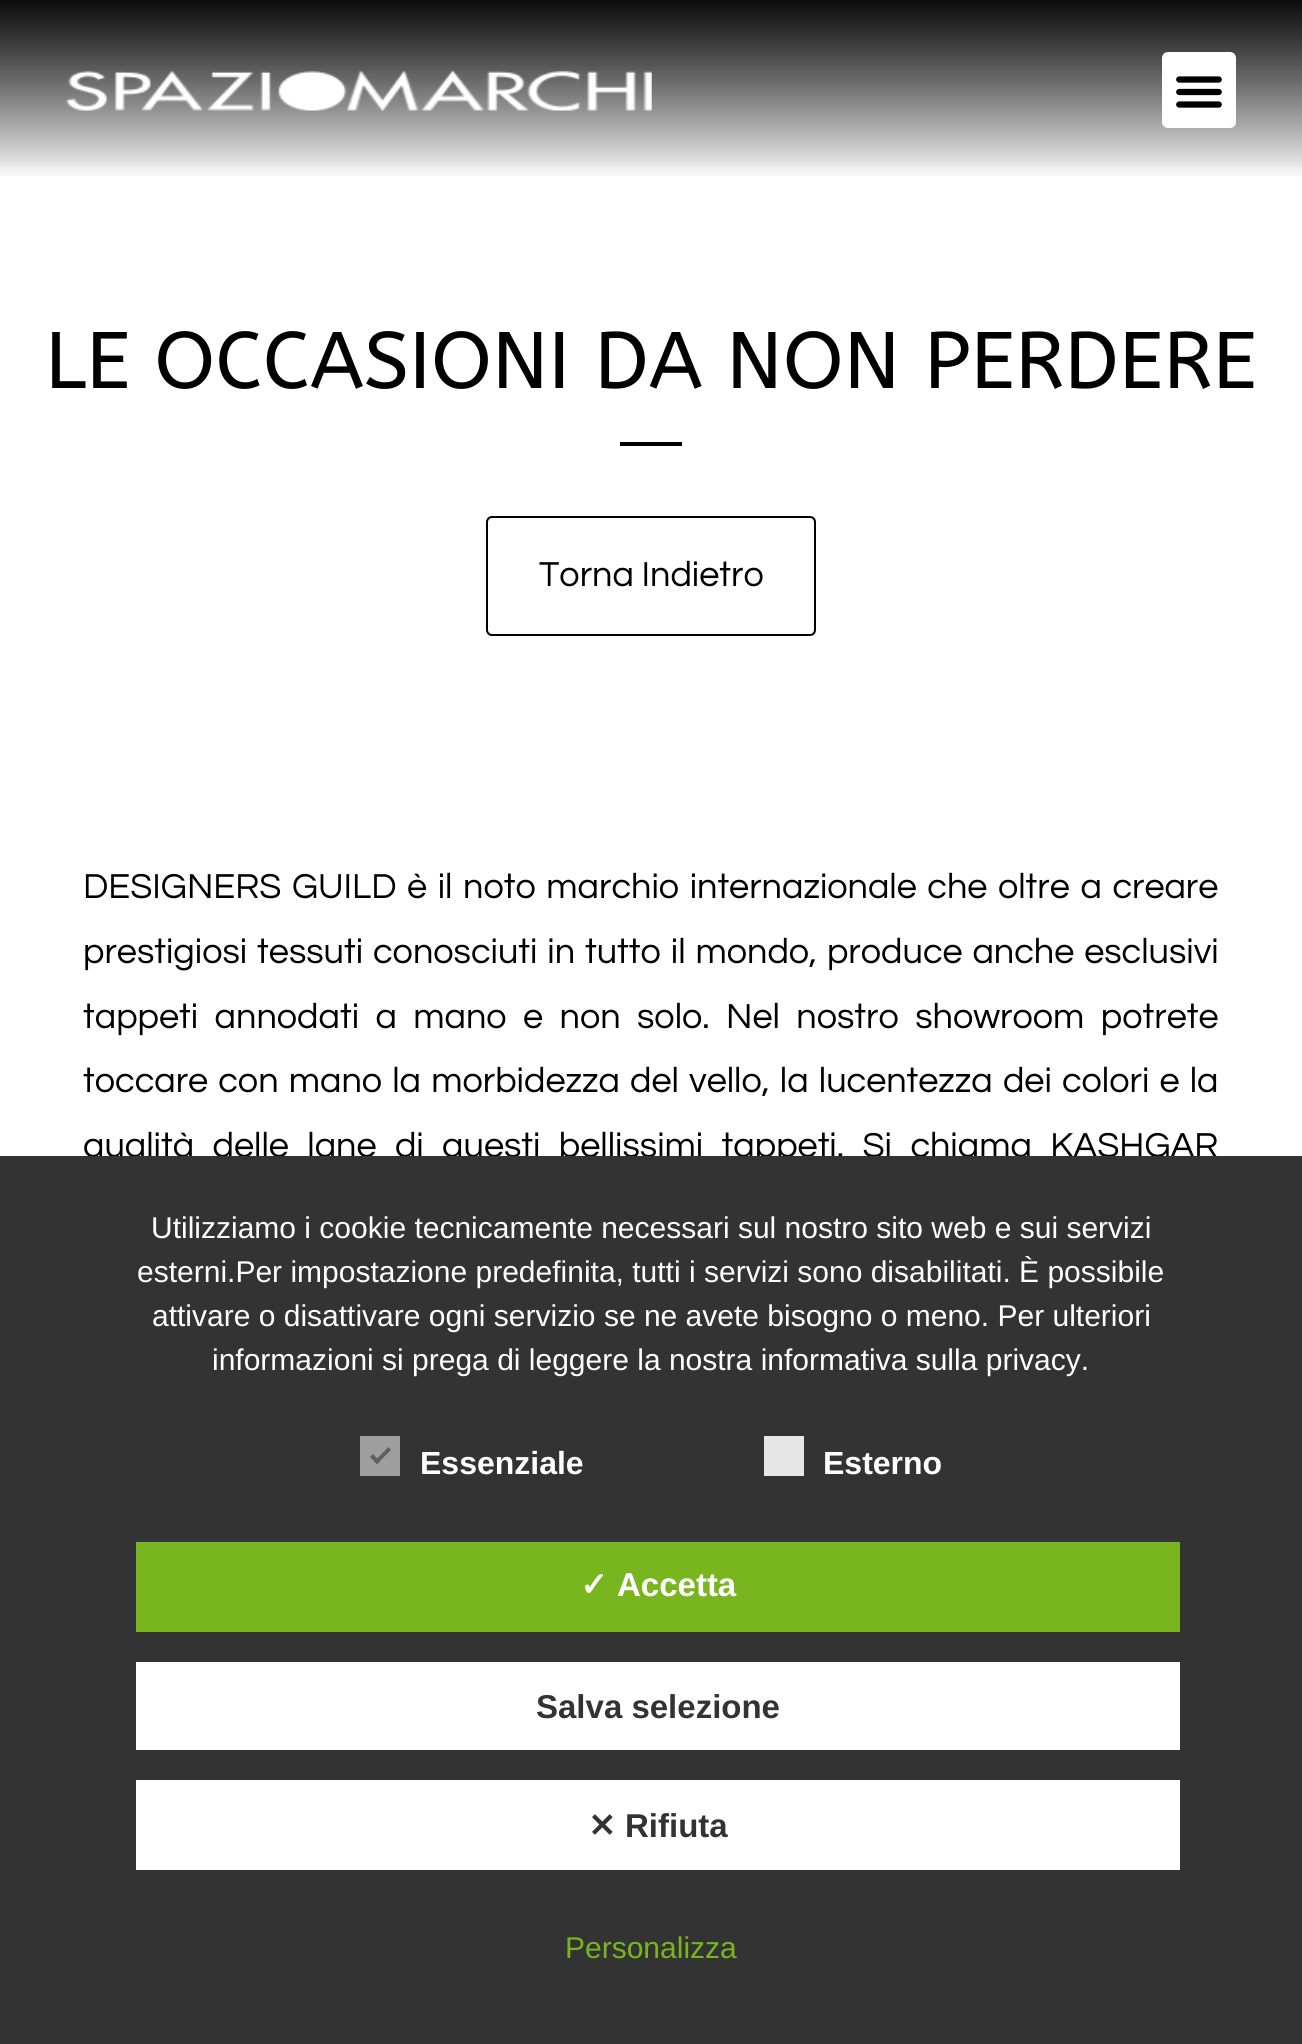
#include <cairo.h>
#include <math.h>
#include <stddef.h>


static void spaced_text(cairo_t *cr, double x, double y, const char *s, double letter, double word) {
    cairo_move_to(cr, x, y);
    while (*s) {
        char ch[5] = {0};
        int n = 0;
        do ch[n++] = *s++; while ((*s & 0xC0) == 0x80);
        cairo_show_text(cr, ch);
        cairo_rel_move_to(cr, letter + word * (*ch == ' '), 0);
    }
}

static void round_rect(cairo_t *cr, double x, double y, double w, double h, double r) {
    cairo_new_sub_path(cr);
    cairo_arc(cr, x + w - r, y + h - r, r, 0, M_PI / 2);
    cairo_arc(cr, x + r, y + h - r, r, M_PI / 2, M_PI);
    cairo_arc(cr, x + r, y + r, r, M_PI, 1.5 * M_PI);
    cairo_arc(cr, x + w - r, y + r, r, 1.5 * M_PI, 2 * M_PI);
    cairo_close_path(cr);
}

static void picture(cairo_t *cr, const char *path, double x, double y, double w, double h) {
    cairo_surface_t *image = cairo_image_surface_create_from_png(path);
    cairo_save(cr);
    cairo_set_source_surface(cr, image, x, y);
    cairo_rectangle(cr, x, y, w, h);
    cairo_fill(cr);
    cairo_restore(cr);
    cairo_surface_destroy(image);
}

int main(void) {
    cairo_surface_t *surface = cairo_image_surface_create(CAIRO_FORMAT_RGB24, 1302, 2044);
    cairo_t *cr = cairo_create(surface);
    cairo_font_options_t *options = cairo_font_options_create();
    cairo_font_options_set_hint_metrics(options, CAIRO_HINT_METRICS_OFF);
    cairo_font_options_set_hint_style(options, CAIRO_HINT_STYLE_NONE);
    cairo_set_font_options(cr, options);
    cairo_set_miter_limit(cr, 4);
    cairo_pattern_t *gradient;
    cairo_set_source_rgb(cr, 1, 1, 1);
    cairo_paint(cr);
    cairo_set_source_rgb(cr, 0.945, 0.945, 0.945);
    cairo_rectangle(cr, 0, 1, 1302, 1);
    cairo_fill(cr);
    gradient = cairo_pattern_create_linear(651, 0, 651, 180);
    cairo_pattern_add_color_stop_rgba(gradient, 0, 0.157, 0.157, 0.157, 0.28);
    cairo_pattern_add_color_stop_rgba(gradient, 1, 0.157, 0.157, 0.157, 0);
    cairo_set_source(cr, gradient);
    cairo_pattern_destroy(gradient);
    cairo_rectangle(cr, 0, 1, 1302, 165);
    cairo_fill(cr);
    gradient = cairo_pattern_create_linear(651, 0, 651, 180);
    cairo_pattern_add_color_stop_rgba(gradient, 0, 0.051, 0.051, 0.051, 1);
    cairo_pattern_add_color_stop_rgba(gradient, 1, 0.051, 0.051, 0.051, 0);
    cairo_set_source(cr, gradient);
    cairo_pattern_destroy(gradient);
    cairo_rectangle(cr, 0, 0, 1302, 176);
    cairo_fill(cr);
    picture(cr, "img1.png", 66, 70, 586, 41);
    cairo_set_source_rgb(cr, 1, 1, 1);
    round_rect(cr, 1162, 52, 74, 76, 6);
    cairo_fill(cr);
    picture(cr, "img2.png", 1176, 76, 46, 32);
    cairo_select_font_face(cr, "ABeeZee", CAIRO_FONT_SLANT_NORMAL, CAIRO_FONT_WEIGHT_NORMAL);
    cairo_set_font_size(cr, 80);
    cairo_set_source_rgb(cr, 0, 0, 0);
    cairo_move_to(cr, 45, 388);
    cairo_show_text(cr, "LE OCCASIONI DA NON PERDERE");
    cairo_rectangle(cr, 620, 442, 62, 4);
    cairo_fill(cr);
    round_rect(cr, 487, 517, 328, 118, 5);
    cairo_stroke(cr);
    cairo_select_font_face(cr, "Questrial", CAIRO_FONT_SLANT_NORMAL, CAIRO_FONT_WEIGHT_NORMAL);
    cairo_set_font_size(cr, 36);
    cairo_move_to(cr, 539, 586);
    cairo_show_text(cr, "Torna Indietro");
    spaced_text(cr, 83, 898, "DESIGNERS GUILD è il noto marchio internazionale che oltre a creare", 0, 2.9);
    spaced_text(cr, 83, 963, "prestigiosi tessuti conosciuti in tutto il mondo, produce anche esclusivi", 0, 2.25);
    spaced_text(cr, 83, 1028, "tappeti annodati a mano e non solo. Nel nostro showroom potrete", 0, 8.75);
    spaced_text(cr, 83, 1092, "toccare con mano la morbidezza del vello, la lucentezza dei colori e la", 0, 2.5);
    spaced_text(cr, 83, 1157, "qualità delle lane di questi bellissimi tappeti. Si chiama KASHGAR", 0, 10.75);
    cairo_set_source_rgb(cr, 0.2, 0.2, 0.2);
    cairo_rectangle(cr, 0, 1156, 1302, 888);
    cairo_fill(cr);
    cairo_select_font_face(cr, "Liberation Sans", CAIRO_FONT_SLANT_NORMAL, CAIRO_FONT_WEIGHT_NORMAL);
    cairo_set_font_size(cr, 30);
    cairo_set_source_rgb(cr, 1, 1, 1);
    cairo_move_to(cr, 151, 1238);
    cairo_show_text(cr, "Utilizziamo i cookie tecnicamente necessari sul nostro sito web e sui servizi");
    cairo_move_to(cr, 137, 1282);
    cairo_show_text(cr, "esterni.Per impostazione predefinita, tutti i servizi sono disabilitati. È possibile");
    cairo_move_to(cr, 152, 1326);
    cairo_show_text(cr, "attivare o disattivare ogni servizio se ne avete bisogno o meno. Per ulteriori");
    cairo_move_to(cr, 212, 1370);
    cairo_show_text(cr, "informazioni si prega di leggere la nostra informativa sulla privacy.");
    cairo_set_source_rgb(cr, 0.62, 0.62, 0.62);
    cairo_rectangle(cr, 360, 1436, 40, 40);
    cairo_fill(cr);
    cairo_set_source_rgb(cr, 0.369, 0.369, 0.369);
    cairo_new_path(cr);
    cairo_move_to(cr, 388.5, 1447);
    cairo_line_to(cr, 391, 1450);
    cairo_line_to(cr, 377, 1464);
    cairo_line_to(cr, 374, 1461.5);
    cairo_close_path(cr);
    cairo_fill(cr);
    cairo_new_path(cr);
    cairo_move_to(cr, 373, 1454);
    cairo_line_to(cr, 380, 1461.5);
    cairo_line_to(cr, 377, 1464);
    cairo_line_to(cr, 370, 1457);
    cairo_close_path(cr);
    cairo_fill(cr);
    cairo_select_font_face(cr, "Liberation Sans", CAIRO_FONT_SLANT_NORMAL, CAIRO_FONT_WEIGHT_BOLD);
    cairo_set_font_size(cr, 32);
    cairo_set_source_rgb(cr, 1, 1, 1);
    cairo_move_to(cr, 420, 1474);
    cairo_show_text(cr, "Essenziale");
    cairo_set_source_rgb(cr, 0.902, 0.902, 0.902);
    cairo_rectangle(cr, 764, 1436, 40, 40);
    cairo_fill(cr);
    cairo_set_source_rgb(cr, 1, 1, 1);
    cairo_move_to(cr, 823, 1474);
    cairo_show_text(cr, "Esterno");
    cairo_set_source_rgb(cr, 0.475, 0.71, 0.122);
    cairo_rectangle(cr, 136, 1542, 1044, 90);
    cairo_fill(cr);
    cairo_select_font_face(cr, "DejaVu Sans", CAIRO_FONT_SLANT_NORMAL, CAIRO_FONT_WEIGHT_BOLD);
    cairo_set_font_size(cr, 33);
    cairo_set_source_rgb(cr, 1, 1, 1);
    cairo_move_to(cr, 580, 1596);
    cairo_show_text(cr, "✓");
    cairo_select_font_face(cr, "Liberation Sans", CAIRO_FONT_SLANT_NORMAL, CAIRO_FONT_WEIGHT_BOLD);
    cairo_move_to(cr, 617, 1596);
    cairo_show_text(cr, "Accetta");
    cairo_rectangle(cr, 136, 1662, 1044, 88);
    cairo_fill(cr);
    cairo_set_source_rgb(cr, 0.2, 0.2, 0.2);
    cairo_move_to(cr, 536, 1718);
    cairo_show_text(cr, "Salva selezione");
    cairo_set_source_rgb(cr, 1, 1, 1);
    cairo_rectangle(cr, 136, 1780, 1044, 90);
    cairo_fill(cr);
    cairo_select_font_face(cr, "DejaVu Sans", CAIRO_FONT_SLANT_NORMAL, CAIRO_FONT_WEIGHT_BOLD);
    cairo_set_source_rgb(cr, 0.2, 0.2, 0.2);
    cairo_move_to(cr, 588, 1837);
    cairo_show_text(cr, "✕");
    cairo_select_font_face(cr, "Liberation Sans", CAIRO_FONT_SLANT_NORMAL, CAIRO_FONT_WEIGHT_BOLD);
    cairo_move_to(cr, 625, 1837);
    cairo_show_text(cr, "Rifiuta");
    cairo_select_font_face(cr, "Liberation Sans", CAIRO_FONT_SLANT_NORMAL, CAIRO_FONT_WEIGHT_NORMAL);
    cairo_set_font_size(cr, 30);
    cairo_set_source_rgb(cr, 0.475, 0.71, 0.122);
    cairo_move_to(cr, 565, 1958);
    cairo_show_text(cr, "Personalizza");
    cairo_surface_write_to_png(surface, "page.png");
    cairo_font_options_destroy(options);
    cairo_destroy(cr);
    cairo_surface_destroy(surface);
    return 0;
}
